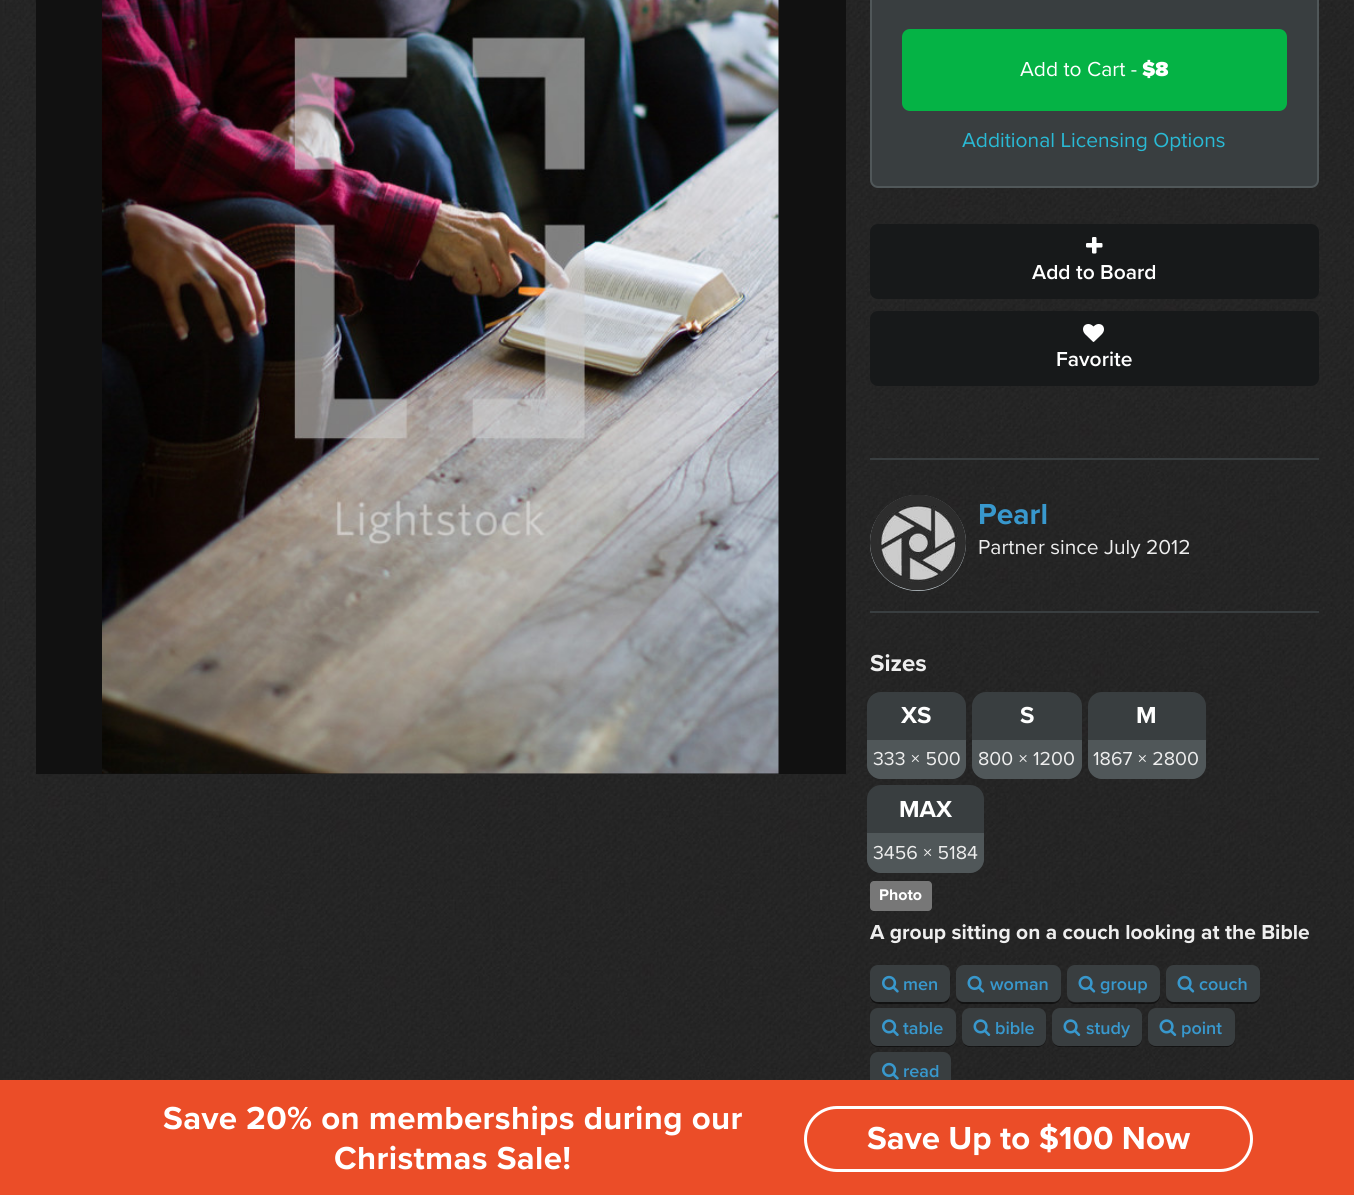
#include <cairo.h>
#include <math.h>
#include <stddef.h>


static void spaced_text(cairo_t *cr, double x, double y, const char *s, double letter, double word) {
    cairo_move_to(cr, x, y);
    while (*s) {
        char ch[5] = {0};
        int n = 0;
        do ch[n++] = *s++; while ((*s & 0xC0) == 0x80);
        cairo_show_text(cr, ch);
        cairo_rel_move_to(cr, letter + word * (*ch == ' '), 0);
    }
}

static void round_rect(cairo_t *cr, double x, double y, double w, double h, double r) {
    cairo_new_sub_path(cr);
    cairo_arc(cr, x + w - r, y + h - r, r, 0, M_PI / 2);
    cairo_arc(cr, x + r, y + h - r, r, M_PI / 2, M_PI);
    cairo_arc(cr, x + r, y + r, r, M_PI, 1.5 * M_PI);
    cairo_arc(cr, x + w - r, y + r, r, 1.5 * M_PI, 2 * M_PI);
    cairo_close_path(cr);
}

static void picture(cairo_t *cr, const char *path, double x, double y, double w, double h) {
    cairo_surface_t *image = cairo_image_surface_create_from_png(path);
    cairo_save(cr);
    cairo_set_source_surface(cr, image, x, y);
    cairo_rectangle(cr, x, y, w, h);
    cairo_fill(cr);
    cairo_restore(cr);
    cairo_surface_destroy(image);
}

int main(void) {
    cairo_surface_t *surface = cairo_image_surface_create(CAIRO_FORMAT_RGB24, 1354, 1195);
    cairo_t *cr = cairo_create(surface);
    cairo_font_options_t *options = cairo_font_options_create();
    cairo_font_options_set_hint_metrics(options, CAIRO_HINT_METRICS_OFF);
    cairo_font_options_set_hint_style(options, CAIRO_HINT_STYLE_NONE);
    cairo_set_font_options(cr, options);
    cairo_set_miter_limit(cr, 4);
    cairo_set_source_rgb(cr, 0.141, 0.141, 0.141);
    cairo_paint(cr);
    picture(cr, "img1.png", 2, 0, 1352, 1080);
    cairo_set_source_rgb(cr, 0.067, 0.067, 0.067);
    cairo_rectangle(cr, 36, 0, 810, 774);
    cairo_fill(cr);
    picture(cr, "img2.png", 102, 0, 677, 774);
    cairo_set_source_rgb(cr, 0.224, 0.243, 0.251);
    cairo_rectangle(cr, 870, 458, 449, 2);
    cairo_fill(cr);
    round_rect(cr, 871, -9, 447, 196, 7);
    cairo_fill_preserve(cr);
    cairo_set_source_rgb(cr, 0.314, 0.341, 0.349);
    cairo_stroke(cr);
    cairo_set_source_rgb(cr, 0.02, 0.702, 0.271);
    round_rect(cr, 902, 29, 385, 82, 8);
    cairo_fill(cr);
    cairo_select_font_face(cr, "Proxima Nova", CAIRO_FONT_SLANT_NORMAL, CAIRO_FONT_WEIGHT_NORMAL);
    cairo_set_font_size(cr, 21);
    cairo_set_source_rgb(cr, 1, 1, 1);
    cairo_move_to(cr, 1020, 76);
    cairo_show_text(cr, "Add to Cart -");
    cairo_select_font_face(cr, "Proxima Nova Black", CAIRO_FONT_SLANT_NORMAL, CAIRO_FONT_WEIGHT_NORMAL);
    cairo_move_to(cr, 1142, 76);
    cairo_show_text(cr, "$8");
    cairo_select_font_face(cr, "Proxima Nova", CAIRO_FONT_SLANT_NORMAL, CAIRO_FONT_WEIGHT_NORMAL);
    cairo_set_source_rgb(cr, 0.161, 0.729, 0.835);
    cairo_move_to(cr, 962, 147);
    cairo_show_text(cr, "Additional Licensing Options");
    cairo_set_source_rgb(cr, 0.09, 0.098, 0.102);
    round_rect(cr, 870, 224, 449, 75, 8);
    cairo_fill(cr);
    picture(cr, "img3.png", 1086, 237, 17, 17);
    cairo_select_font_face(cr, "Proxima Nova SemiBold", CAIRO_FONT_SLANT_NORMAL, CAIRO_FONT_WEIGHT_NORMAL);
    cairo_set_source_rgb(cr, 1, 1, 1);
    cairo_move_to(cr, 1032, 279);
    cairo_show_text(cr, "Add to Board");
    cairo_set_source_rgb(cr, 0.09, 0.098, 0.102);
    round_rect(cr, 870, 311, 449, 75, 8);
    cairo_fill(cr);
    picture(cr, "img4.png", 1083, 324, 21, 18);
    cairo_set_source_rgb(cr, 1, 1, 1);
    cairo_move_to(cr, 1056, 366);
    cairo_show_text(cr, "Favorite");
    cairo_set_source_rgb(cr, 0.224, 0.243, 0.251);
    cairo_rectangle(cr, 870, 611, 449, 2);
    cairo_fill(cr);
    cairo_set_source_rgb(cr, 0.792, 0.831, 0.851);
    cairo_arc(cr, 918, 543, 48, 0, 2 * M_PI);
    cairo_fill(cr);
    picture(cr, "img5.png", 870, 495, 96, 96);
    cairo_select_font_face(cr, "Proxima Nova", CAIRO_FONT_SLANT_NORMAL, CAIRO_FONT_WEIGHT_BOLD);
    cairo_set_font_size(cr, 30);
    cairo_set_source_rgb(cr, 0.22, 0.596, 0.804);
    cairo_move_to(cr, 978, 524);
    cairo_show_text(cr, "Pearl");
    cairo_select_font_face(cr, "Proxima Nova", CAIRO_FONT_SLANT_NORMAL, CAIRO_FONT_WEIGHT_NORMAL);
    cairo_set_font_size(cr, 21);
    cairo_set_source_rgb(cr, 0.933, 0.933, 0.933);
    cairo_move_to(cr, 978, 554);
    cairo_show_text(cr, "Partner since July 2012");
    cairo_select_font_face(cr, "Proxima Nova", CAIRO_FONT_SLANT_NORMAL, CAIRO_FONT_WEIGHT_BOLD);
    cairo_set_font_size(cr, 24);
    cairo_move_to(cr, 870, 671);
    cairo_show_text(cr, "Sizes");
    cairo_set_source_rgb(cr, 0.224, 0.243, 0.251);
    round_rect(cr, 867, 692, 99, 87, 14);
    cairo_fill(cr);
    cairo_set_source_rgb(cr, 1, 1, 1);
    cairo_move_to(cr, 901, 723);
    cairo_show_text(cr, "XS");
    cairo_set_source_rgb(cr, 0.314, 0.341, 0.349);
    cairo_new_path(cr);
    cairo_move_to(cr, 867, 740);
    cairo_line_to(cr, 966, 740);
    cairo_line_to(cr, 966, 765);
    cairo_curve_to(cr, 966, 772.5, 959.5, 779, 952, 779);
    cairo_line_to(cr, 881, 779);
    cairo_curve_to(cr, 873.5, 779, 867, 772.5, 867, 765);
    cairo_close_path(cr);
    cairo_fill(cr);
    cairo_select_font_face(cr, "Proxima Nova", CAIRO_FONT_SLANT_NORMAL, CAIRO_FONT_WEIGHT_NORMAL);
    cairo_set_font_size(cr, 19.5);
    cairo_set_source_rgb(cr, 0.933, 0.933, 0.933);
    cairo_move_to(cr, 873, 765);
    cairo_show_text(cr, "333 × 500");
    cairo_set_source_rgb(cr, 0.224, 0.243, 0.251);
    round_rect(cr, 972, 692, 110, 87, 14);
    cairo_fill(cr);
    cairo_select_font_face(cr, "Proxima Nova", CAIRO_FONT_SLANT_NORMAL, CAIRO_FONT_WEIGHT_BOLD);
    cairo_set_font_size(cr, 24);
    cairo_set_source_rgb(cr, 1, 1, 1);
    cairo_move_to(cr, 1020, 723);
    cairo_show_text(cr, "S");
    cairo_set_source_rgb(cr, 0.314, 0.341, 0.349);
    cairo_new_path(cr);
    cairo_move_to(cr, 972, 740);
    cairo_line_to(cr, 1082, 740);
    cairo_line_to(cr, 1082, 765);
    cairo_curve_to(cr, 1082, 772.5, 1075.5, 779, 1068, 779);
    cairo_line_to(cr, 986, 779);
    cairo_curve_to(cr, 978.5, 779, 972, 772.5, 972, 765);
    cairo_close_path(cr);
    cairo_fill(cr);
    cairo_select_font_face(cr, "Proxima Nova", CAIRO_FONT_SLANT_NORMAL, CAIRO_FONT_WEIGHT_NORMAL);
    cairo_set_font_size(cr, 19.5);
    cairo_set_source_rgb(cr, 0.933, 0.933, 0.933);
    cairo_move_to(cr, 978, 765);
    cairo_show_text(cr, "800 × 1200");
    cairo_set_source_rgb(cr, 0.224, 0.243, 0.251);
    round_rect(cr, 1088, 692, 118, 87, 14);
    cairo_fill(cr);
    cairo_select_font_face(cr, "Proxima Nova", CAIRO_FONT_SLANT_NORMAL, CAIRO_FONT_WEIGHT_BOLD);
    cairo_set_font_size(cr, 24);
    cairo_set_source_rgb(cr, 1, 1, 1);
    cairo_move_to(cr, 1136, 723);
    cairo_show_text(cr, "M");
    cairo_set_source_rgb(cr, 0.314, 0.341, 0.349);
    cairo_new_path(cr);
    cairo_move_to(cr, 1088, 740);
    cairo_line_to(cr, 1206, 740);
    cairo_line_to(cr, 1206, 765);
    cairo_curve_to(cr, 1206, 772.5, 1199.5, 779, 1192, 779);
    cairo_line_to(cr, 1102, 779);
    cairo_curve_to(cr, 1094.5, 779, 1088, 772.5, 1088, 765);
    cairo_close_path(cr);
    cairo_fill(cr);
    cairo_select_font_face(cr, "Proxima Nova", CAIRO_FONT_SLANT_NORMAL, CAIRO_FONT_WEIGHT_NORMAL);
    cairo_set_font_size(cr, 19.5);
    cairo_set_source_rgb(cr, 0.933, 0.933, 0.933);
    cairo_move_to(cr, 1093, 765);
    cairo_show_text(cr, "1867 × 2800");
    cairo_set_source_rgb(cr, 0.224, 0.243, 0.251);
    round_rect(cr, 867, 785, 117, 88, 14);
    cairo_fill(cr);
    cairo_select_font_face(cr, "Proxima Nova", CAIRO_FONT_SLANT_NORMAL, CAIRO_FONT_WEIGHT_BOLD);
    cairo_set_font_size(cr, 24);
    cairo_set_source_rgb(cr, 1, 1, 1);
    cairo_move_to(cr, 899, 817);
    cairo_show_text(cr, "MAX");
    cairo_set_source_rgb(cr, 0.314, 0.341, 0.349);
    cairo_new_path(cr);
    cairo_move_to(cr, 867, 833);
    cairo_line_to(cr, 984, 833);
    cairo_line_to(cr, 984, 859);
    cairo_curve_to(cr, 984, 866.5, 977.5, 873, 970, 873);
    cairo_line_to(cr, 881, 873);
    cairo_curve_to(cr, 873.5, 873, 867, 866.5, 867, 859);
    cairo_close_path(cr);
    cairo_fill(cr);
    cairo_select_font_face(cr, "Proxima Nova", CAIRO_FONT_SLANT_NORMAL, CAIRO_FONT_WEIGHT_NORMAL);
    cairo_set_font_size(cr, 19.5);
    cairo_set_source_rgb(cr, 0.933, 0.933, 0.933);
    cairo_move_to(cr, 873, 859);
    cairo_show_text(cr, "3456 × 5184");
    cairo_set_source_rgb(cr, 0.467, 0.467, 0.467);
    round_rect(cr, 870, 881, 62, 30, 4);
    cairo_fill(cr);
    cairo_select_font_face(cr, "Proxima Nova", CAIRO_FONT_SLANT_NORMAL, CAIRO_FONT_WEIGHT_BOLD);
    cairo_set_font_size(cr, 16);
    cairo_set_source_rgb(cr, 1, 1, 1);
    cairo_move_to(cr, 879, 900);
    cairo_show_text(cr, "Photo");
    cairo_set_font_size(cr, 21);
    cairo_set_source_rgb(cr, 0.933, 0.933, 0.933);
    cairo_move_to(cr, 870, 939);
    cairo_show_text(cr, "A group sitting on a couch looking at the Bible");
    cairo_set_source_rgba(cr, 0, 0, 0, 0.5);
    cairo_new_path(cr);
    cairo_move_to(cr, 870, 994);
    cairo_curve_to(cr, 870, 1006, 880, 1004, 889, 1004);
    cairo_line_to(cr, 931, 1004);
    cairo_curve_to(cr, 948, 1004, 950, 1005, 950, 989);
    cairo_curve_to(cr, 950, 984, 951, 975, 949, 971);
    cairo_line_to(cr, 949, 996);
    cairo_line_to(cr, 947, 1000);
    cairo_line_to(cr, 944, 1002);
    cairo_line_to(cr, 876, 1002);
    cairo_curve_to(cr, 874, 1001, 872, 1000, 871, 997);
    cairo_close_path(cr);
    cairo_fill(cr);
    cairo_set_source_rgb(cr, 0.224, 0.243, 0.251);
    round_rect(cr, 870, 965, 80, 37, 8);
    cairo_fill(cr);
    picture(cr, "img6.png", 882, 975, 17, 18);
    cairo_select_font_face(cr, "Proxima Nova SemiBold", CAIRO_FONT_SLANT_NORMAL, CAIRO_FONT_WEIGHT_NORMAL);
    cairo_set_font_size(cr, 18);
    cairo_set_source_rgb(cr, 0.22, 0.596, 0.804);
    cairo_move_to(cr, 903, 990);
    cairo_show_text(cr, "men");
    cairo_set_source_rgba(cr, 0, 0, 0, 0.5);
    cairo_new_path(cr);
    cairo_move_to(cr, 956, 998);
    cairo_curve_to(cr, 957, 1001, 960, 1004, 964, 1004);
    cairo_line_to(cr, 1053, 1004);
    cairo_curve_to(cr, 1057, 1004, 1061, 1000, 1061, 996);
    cairo_line_to(cr, 1061, 974);
    cairo_line_to(cr, 1060, 971);
    cairo_line_to(cr, 1060, 994);
    cairo_curve_to(cr, 1060, 999, 1057, 1002, 1053, 1002);
    cairo_line_to(cr, 963, 1002);
    cairo_curve_to(cr, 960, 1002, 957, 1000, 956, 998);
    cairo_close_path(cr);
    cairo_fill(cr);
    cairo_set_source_rgb(cr, 0.224, 0.243, 0.251);
    round_rect(cr, 956, 965, 105, 37, 8);
    cairo_fill(cr);
    picture(cr, "img7.png", 967, 975, 18, 18);
    cairo_set_source_rgb(cr, 0.22, 0.596, 0.804);
    cairo_move_to(cr, 990, 990);
    cairo_show_text(cr, "woman");
    cairo_set_source_rgba(cr, 0, 0, 0, 0.5);
    cairo_new_path(cr);
    cairo_move_to(cr, 1067, 998);
    cairo_curve_to(cr, 1068, 1001, 1071, 1004, 1075, 1004);
    cairo_line_to(cr, 1152, 1004);
    cairo_curve_to(cr, 1156, 1004, 1160, 1000, 1160, 996);
    cairo_line_to(cr, 1160, 974);
    cairo_line_to(cr, 1159, 971);
    cairo_line_to(cr, 1159, 996);
    cairo_curve_to(cr, 1158, 1005, 1144, 1002, 1139, 1002);
    cairo_line_to(cr, 1087, 1002);
    cairo_curve_to(cr, 1082, 1002, 1070, 1005, 1067, 998);
    cairo_close_path(cr);
    cairo_fill(cr);
    cairo_set_source_rgb(cr, 0.224, 0.243, 0.251);
    round_rect(cr, 1067, 965, 93, 37, 8);
    cairo_fill(cr);
    picture(cr, "img7.png", 1078, 975, 18, 18);
    cairo_set_source_rgb(cr, 0.22, 0.596, 0.804);
    cairo_move_to(cr, 1100, 990);
    cairo_show_text(cr, "group");
    cairo_set_source_rgba(cr, 0, 0, 0, 0.5);
    cairo_new_path(cr);
    cairo_move_to(cr, 1166, 998);
    cairo_curve_to(cr, 1167, 1001, 1170, 1004, 1174, 1004);
    cairo_line_to(cr, 1252, 1004);
    cairo_curve_to(cr, 1256, 1004, 1260, 1000, 1260, 996);
    cairo_line_to(cr, 1260, 994);
    cairo_curve_to(cr, 1260, 999, 1257, 1002, 1252, 1002);
    cairo_line_to(cr, 1173, 1002);
    cairo_curve_to(cr, 1170, 1002, 1167, 1000, 1166, 998);
    cairo_close_path(cr);
    cairo_fill(cr);
    cairo_set_source_rgb(cr, 0.224, 0.243, 0.251);
    round_rect(cr, 1166, 965, 94, 37, 8);
    cairo_fill(cr);
    picture(cr, "img7.png", 1177, 975, 18, 18);
    cairo_set_source_rgb(cr, 0.22, 0.596, 0.804);
    cairo_move_to(cr, 1199, 990);
    cairo_show_text(cr, "couch");
    cairo_set_source_rgba(cr, 0, 0, 0, 0.5);
    cairo_new_path(cr);
    cairo_move_to(cr, 870, 1038);
    cairo_line_to(cr, 870, 1039);
    cairo_curve_to(cr, 870, 1043, 874, 1047, 878, 1047);
    cairo_line_to(cr, 948, 1047);
    cairo_curve_to(cr, 952, 1047, 956, 1043, 956, 1039);
    cairo_line_to(cr, 956, 1018);
    cairo_line_to(cr, 955, 1015);
    cairo_line_to(cr, 955, 1040);
    cairo_line_to(cr, 953, 1043);
    cairo_line_to(cr, 950, 1045);
    cairo_line_to(cr, 876, 1045);
    cairo_curve_to(cr, 874, 1045, 872, 1043, 871, 1041);
    cairo_close_path(cr);
    cairo_fill(cr);
    cairo_set_source_rgb(cr, 0.224, 0.243, 0.251);
    round_rect(cr, 870, 1008, 86, 38, 8);
    cairo_fill(cr);
    picture(cr, "img8.png", 882, 1019, 17, 17);
    cairo_set_source_rgb(cr, 0.22, 0.596, 0.804);
    cairo_move_to(cr, 903, 1034);
    cairo_show_text(cr, "table");
    cairo_set_source_rgba(cr, 0, 0, 0, 0.5);
    cairo_new_path(cr);
    cairo_move_to(cr, 962, 1042);
    cairo_curve_to(cr, 964, 1045, 967, 1047, 970, 1047);
    cairo_line_to(cr, 1038, 1047);
    cairo_curve_to(cr, 1042, 1047, 1046, 1043, 1046, 1039);
    cairo_line_to(cr, 1046, 1018);
    cairo_line_to(cr, 1045, 1015);
    cairo_line_to(cr, 1046, 1034);
    cairo_curve_to(cr, 1046, 1048, 1039, 1046, 1026, 1046);
    cairo_line_to(cr, 980, 1046);
    cairo_curve_to(cr, 976, 1046, 966, 1048, 962, 1042);
    cairo_close_path(cr);
    cairo_fill(cr);
    cairo_set_source_rgb(cr, 0.224, 0.243, 0.251);
    round_rect(cr, 962, 1008, 84, 38, 8);
    cairo_fill(cr);
    picture(cr, "img9.png", 973, 1019, 18, 17);
    cairo_set_source_rgb(cr, 0.22, 0.596, 0.804);
    cairo_move_to(cr, 995, 1034);
    cairo_show_text(cr, "bible");
    cairo_set_source_rgba(cr, 0, 0, 0, 0.5);
    cairo_new_path(cr);
    cairo_move_to(cr, 1052, 1042);
    cairo_curve_to(cr, 1054, 1045, 1057, 1047, 1060, 1047);
    cairo_line_to(cr, 1134, 1047);
    cairo_curve_to(cr, 1138, 1047, 1142, 1043, 1142, 1039);
    cairo_line_to(cr, 1142, 1018);
    cairo_line_to(cr, 1141, 1015);
    cairo_line_to(cr, 1142, 1034);
    cairo_curve_to(cr, 1142, 1048, 1134, 1046, 1122, 1046);
    cairo_line_to(cr, 1072, 1046);
    cairo_curve_to(cr, 1067, 1046, 1056, 1048, 1052, 1042);
    cairo_close_path(cr);
    cairo_fill(cr);
    cairo_set_source_rgb(cr, 0.224, 0.243, 0.251);
    round_rect(cr, 1052, 1008, 90, 38, 8);
    cairo_fill(cr);
    picture(cr, "img9.png", 1063, 1019, 18, 17);
    cairo_set_source_rgb(cr, 0.22, 0.596, 0.804);
    cairo_move_to(cr, 1086, 1034);
    cairo_show_text(cr, "study");
    cairo_set_source_rgba(cr, 0, 0, 0, 0.5);
    cairo_new_path(cr);
    cairo_move_to(cr, 1148, 1042);
    cairo_curve_to(cr, 1150, 1045, 1153, 1047, 1156, 1047);
    cairo_line_to(cr, 1227, 1047);
    cairo_curve_to(cr, 1231, 1047, 1235, 1043, 1235, 1039);
    cairo_line_to(cr, 1235, 1018);
    cairo_line_to(cr, 1234, 1015);
    cairo_line_to(cr, 1234, 1034);
    cairo_curve_to(cr, 1234, 1048, 1228, 1046, 1215, 1046);
    cairo_line_to(cr, 1167, 1046);
    cairo_curve_to(cr, 1162, 1046, 1152, 1048, 1148, 1042);
    cairo_close_path(cr);
    cairo_fill(cr);
    cairo_set_source_rgb(cr, 0.224, 0.243, 0.251);
    round_rect(cr, 1148, 1008, 87, 38, 8);
    cairo_fill(cr);
    picture(cr, "img9.png", 1159, 1019, 18, 17);
    cairo_set_source_rgb(cr, 0.22, 0.596, 0.804);
    cairo_move_to(cr, 1181, 1034);
    cairo_show_text(cr, "point");
    cairo_set_source_rgb(cr, 0.224, 0.243, 0.251);
    round_rect(cr, 870, 1052, 81, 37, 8);
    cairo_fill(cr);
    picture(cr, "img6.png", 882, 1062, 17, 18);
    cairo_set_source_rgb(cr, 0.22, 0.596, 0.804);
    cairo_move_to(cr, 903, 1077);
    cairo_show_text(cr, "read");
    cairo_set_source_rgb(cr, 0.918, 0.302, 0.157);
    cairo_rectangle(cr, 0, 1080, 1354, 115);
    cairo_fill(cr);
    cairo_select_font_face(cr, "Proxima Nova", CAIRO_FONT_SLANT_NORMAL, CAIRO_FONT_WEIGHT_BOLD);
    cairo_set_font_size(cr, 33);
    cairo_set_source_rgb(cr, 1, 1, 1);
    spaced_text(cr, 163, 1129, "Save 20% on memberships during our", 0.35, 0);
    spaced_text(cr, 334, 1169, "Christmas Sale!", 0.35, 0);
    round_rect(cr, 805.5, 1107.5, 446, 63, 31.5);
    cairo_set_line_width(cr, 3);
    cairo_stroke(cr);
    cairo_move_to(cr, 867, 1149);
    cairo_show_text(cr, "Save Up to $100 Now");
    cairo_surface_write_to_png(surface, "page.png");
    cairo_font_options_destroy(options);
    cairo_destroy(cr);
    cairo_surface_destroy(surface);
    return 0;
}
